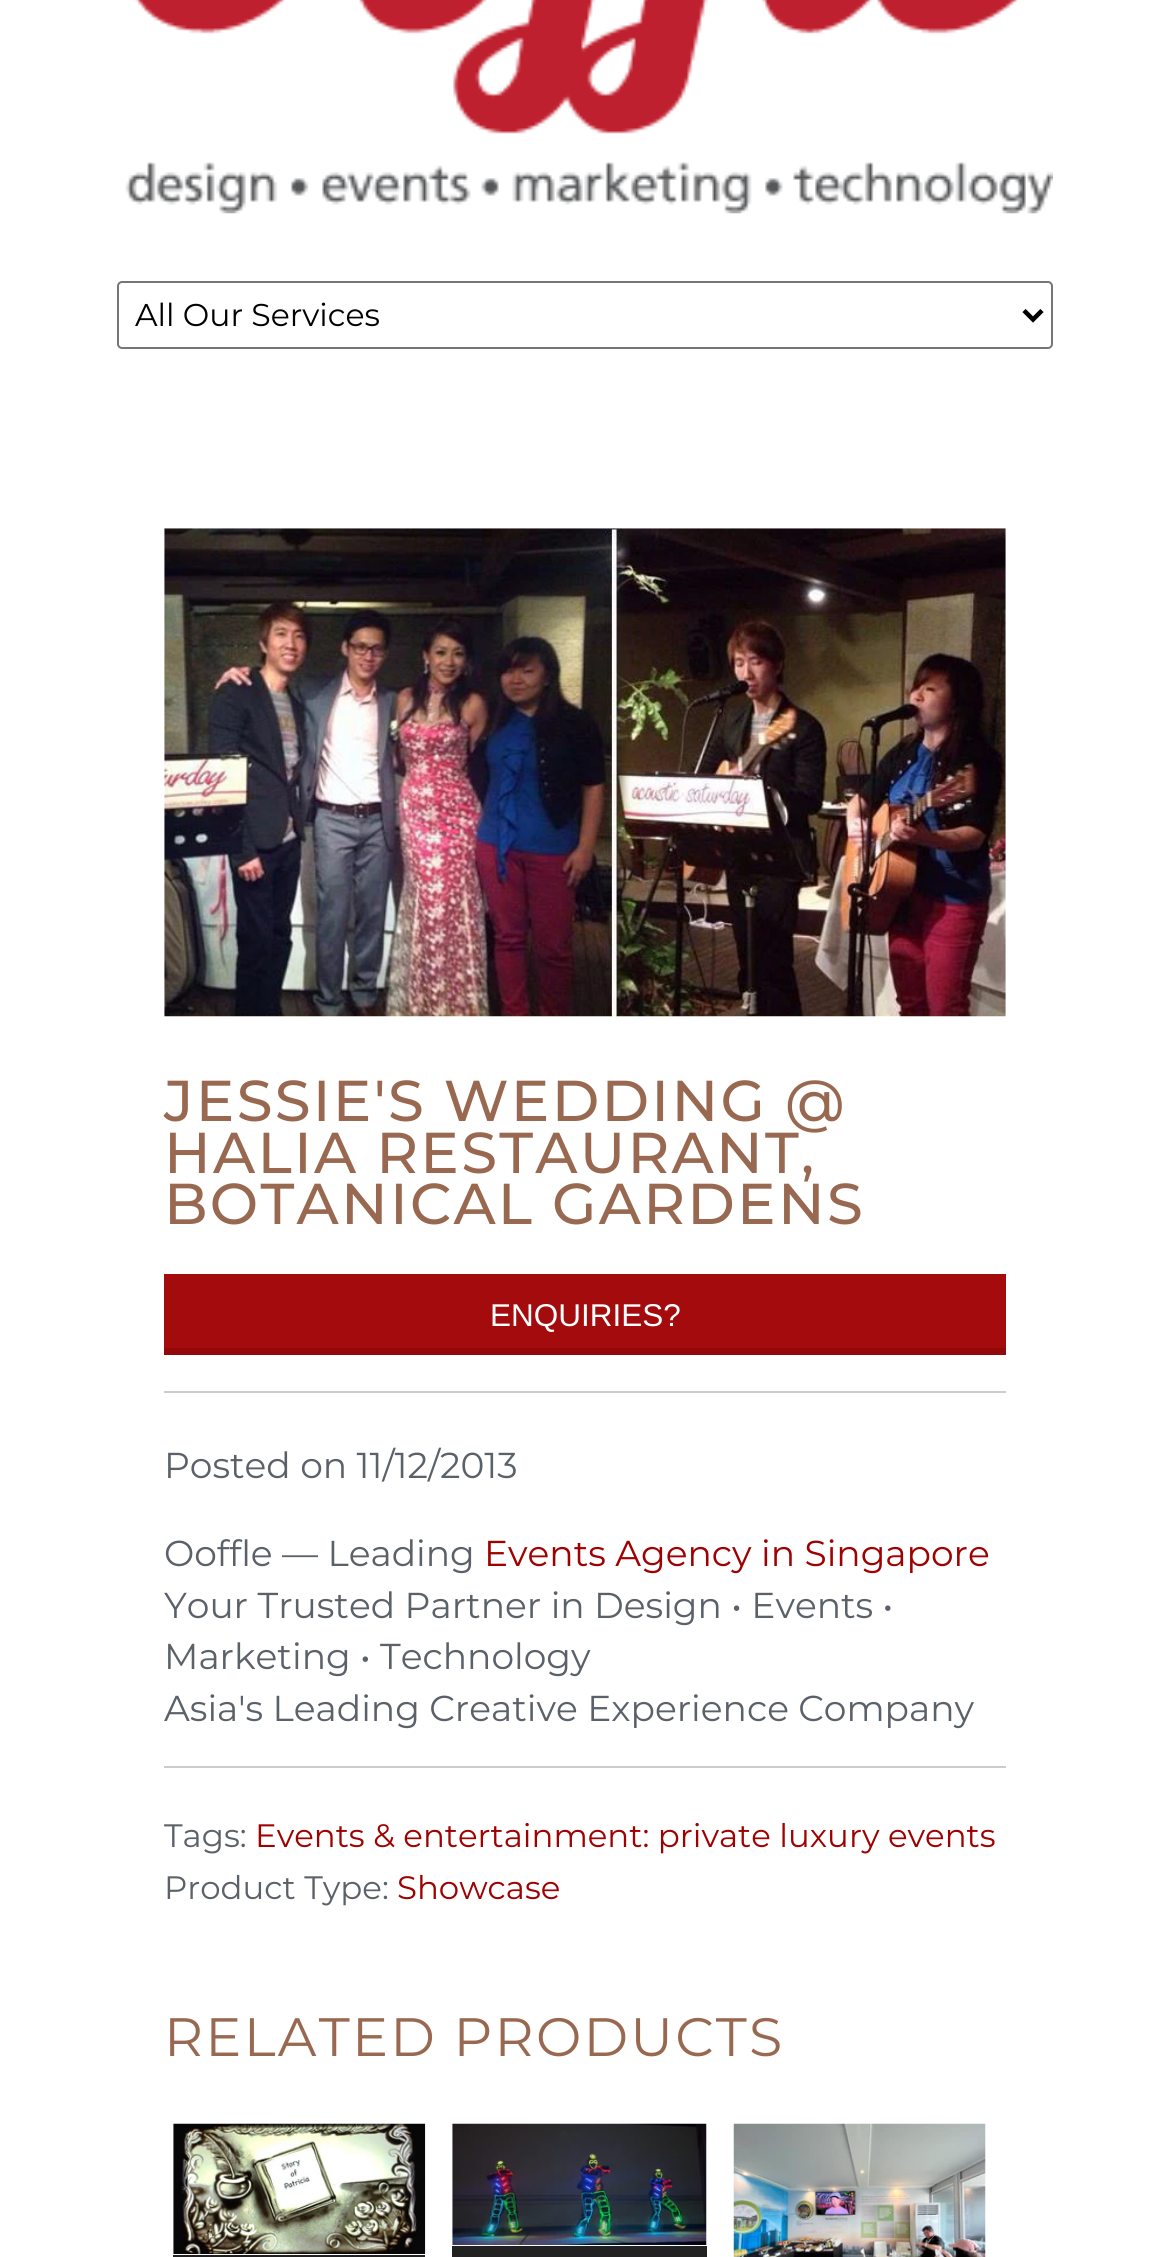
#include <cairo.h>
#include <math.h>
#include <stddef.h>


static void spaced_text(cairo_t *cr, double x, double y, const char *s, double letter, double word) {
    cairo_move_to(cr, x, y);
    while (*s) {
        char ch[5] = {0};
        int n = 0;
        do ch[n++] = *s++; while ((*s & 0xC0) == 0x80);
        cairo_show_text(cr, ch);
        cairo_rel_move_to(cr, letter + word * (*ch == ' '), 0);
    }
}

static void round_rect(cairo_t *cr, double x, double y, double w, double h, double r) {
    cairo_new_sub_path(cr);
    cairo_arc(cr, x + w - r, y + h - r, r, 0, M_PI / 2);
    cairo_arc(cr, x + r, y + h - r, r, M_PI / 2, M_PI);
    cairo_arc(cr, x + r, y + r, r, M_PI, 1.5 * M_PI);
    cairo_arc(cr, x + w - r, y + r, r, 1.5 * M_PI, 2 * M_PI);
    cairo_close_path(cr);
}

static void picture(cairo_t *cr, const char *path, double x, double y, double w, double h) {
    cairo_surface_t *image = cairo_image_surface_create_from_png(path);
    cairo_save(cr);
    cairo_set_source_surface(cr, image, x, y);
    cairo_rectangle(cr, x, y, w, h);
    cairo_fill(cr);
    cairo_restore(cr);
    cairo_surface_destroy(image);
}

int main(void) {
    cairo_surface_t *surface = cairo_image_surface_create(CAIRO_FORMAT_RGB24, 1169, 2257);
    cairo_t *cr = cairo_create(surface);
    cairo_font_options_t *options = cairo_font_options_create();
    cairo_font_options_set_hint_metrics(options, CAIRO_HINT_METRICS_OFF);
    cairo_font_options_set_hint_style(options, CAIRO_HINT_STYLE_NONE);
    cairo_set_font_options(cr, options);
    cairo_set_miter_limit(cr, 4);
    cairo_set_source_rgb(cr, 1, 1, 1);
    cairo_paint(cr);
    picture(cr, "img1.png", 125, 0, 928, 214);
    round_rect(cr, 118, 282, 934, 66, 4);
    cairo_set_source_rgb(cr, 0.463, 0.463, 0.463);
    cairo_stroke(cr);
    cairo_new_path(cr);
    cairo_move_to(cr, 1024, 310.5);
    cairo_line_to(cr, 1033, 319.5);
    cairo_line_to(cr, 1042, 310.5);
    cairo_set_source_rgb(cr, 0, 0, 0);
    cairo_set_line_width(cr, 4.5);
    cairo_stroke(cr);
    cairo_select_font_face(cr, "Montserrat", CAIRO_FONT_SLANT_NORMAL, CAIRO_FONT_WEIGHT_NORMAL);
    cairo_set_font_size(cr, 31.5);
    cairo_move_to(cr, 135, 326);
    cairo_show_text(cr, "All Our Services");
    picture(cr, "img2.png", 164, 528, 842, 489);
    cairo_select_font_face(cr, "Montserrat Medium", CAIRO_FONT_SLANT_NORMAL, CAIRO_FONT_WEIGHT_NORMAL);
    cairo_set_font_size(cr, 57.6);
    cairo_set_source_rgb(cr, 0.6, 0.408, 0.314);
    spaced_text(cr, 164, 1121, "JESSIE'S WEDDING @", 2.25, 0);
    spaced_text(cr, 164, 1173, "HALIA RESTAURANT,", 2.25, 0);
    spaced_text(cr, 164, 1224, "BOTANICAL GARDENS", 2.25, 0);
    cairo_set_source_rgb(cr, 0.639, 0.043, 0.047);
    cairo_rectangle(cr, 164, 1274, 842, 74);
    cairo_fill(cr);
    cairo_set_source_rgb(cr, 0.576, 0.039, 0.043);
    cairo_rectangle(cr, 164, 1348, 842, 7);
    cairo_fill(cr);
    cairo_select_font_face(cr, "Liberation Sans", CAIRO_FONT_SLANT_NORMAL, CAIRO_FONT_WEIGHT_NORMAL);
    cairo_set_font_size(cr, 31.5);
    cairo_set_source_rgb(cr, 1, 1, 1);
    cairo_move_to(cr, 490, 1326);
    cairo_show_text(cr, "ENQUIRIES?");
    cairo_set_source_rgb(cr, 0.8, 0.8, 0.8);
    cairo_rectangle(cr, 164, 1391, 842, 2);
    cairo_fill(cr);
    cairo_select_font_face(cr, "Montserrat", CAIRO_FONT_SLANT_NORMAL, CAIRO_FONT_WEIGHT_NORMAL);
    cairo_set_font_size(cr, 36);
    cairo_set_source_rgb(cr, 0.357, 0.38, 0.412);
    cairo_move_to(cr, 164, 1478);
    cairo_show_text(cr, "Posted on 11/12/2013");
    cairo_move_to(cr, 164, 1566);
    cairo_show_text(cr, "Ooffle — Leading");
    cairo_set_source_rgb(cr, 0.624, 0, 0);
    cairo_move_to(cr, 484, 1566);
    cairo_show_text(cr, "Events Agency in Singapore");
    cairo_set_source_rgb(cr, 0.357, 0.38, 0.412);
    cairo_move_to(cr, 164, 1618);
    cairo_show_text(cr, "Your Trusted Partner in Design • Events •");
    cairo_move_to(cr, 164, 1669);
    cairo_show_text(cr, "Marketing • Technology");
    cairo_move_to(cr, 164, 1721);
    cairo_show_text(cr, "Asia's Leading Creative Experience Company");
    cairo_set_source_rgb(cr, 0.8, 0.8, 0.8);
    cairo_rectangle(cr, 164, 1766, 842, 2);
    cairo_fill(cr);
    cairo_set_font_size(cr, 32.4);
    cairo_set_source_rgb(cr, 0.357, 0.38, 0.412);
    cairo_move_to(cr, 164, 1847);
    cairo_show_text(cr, "Tags:");
    cairo_set_source_rgb(cr, 0.624, 0, 0);
    cairo_move_to(cr, 255, 1847);
    cairo_show_text(cr, "Events & entertainment: private luxury events");
    cairo_set_source_rgb(cr, 0.357, 0.38, 0.412);
    cairo_move_to(cr, 164, 1899);
    cairo_show_text(cr, "Product Type:");
    cairo_set_source_rgb(cr, 0.624, 0, 0);
    cairo_move_to(cr, 397, 1899);
    cairo_show_text(cr, "Showcase");
    cairo_set_font_size(cr, 54);
    cairo_set_source_rgb(cr, 0.6, 0.408, 0.314);
    spaced_text(cr, 164, 2056, "RELATED PRODUCTS", 2.25, 0);
    picture(cr, "img3.png", 173, 2123, 253, 131);
    cairo_set_source_rgb(cr, 0.133, 0.133, 0.133);
    cairo_rectangle(cr, 173, 2255, 252, 2);
    cairo_fill(cr);
    picture(cr, "img4.png", 452, 2123, 255, 122);
    cairo_rectangle(cr, 452, 2246, 255, 11);
    cairo_fill(cr);
    picture(cr, "img5.png", 733, 2123, 253, 134);
    cairo_surface_write_to_png(surface, "page.png");
    cairo_font_options_destroy(options);
    cairo_destroy(cr);
    cairo_surface_destroy(surface);
    return 0;
}
